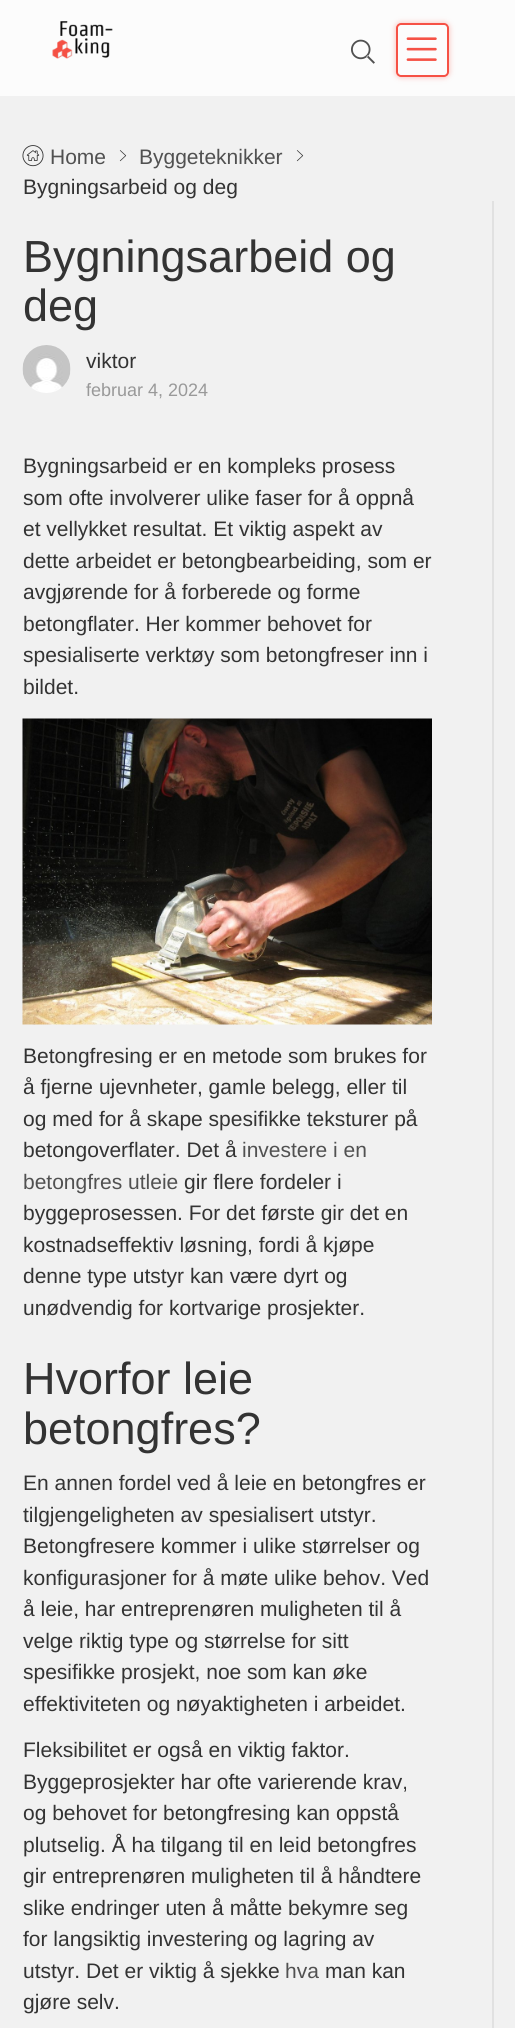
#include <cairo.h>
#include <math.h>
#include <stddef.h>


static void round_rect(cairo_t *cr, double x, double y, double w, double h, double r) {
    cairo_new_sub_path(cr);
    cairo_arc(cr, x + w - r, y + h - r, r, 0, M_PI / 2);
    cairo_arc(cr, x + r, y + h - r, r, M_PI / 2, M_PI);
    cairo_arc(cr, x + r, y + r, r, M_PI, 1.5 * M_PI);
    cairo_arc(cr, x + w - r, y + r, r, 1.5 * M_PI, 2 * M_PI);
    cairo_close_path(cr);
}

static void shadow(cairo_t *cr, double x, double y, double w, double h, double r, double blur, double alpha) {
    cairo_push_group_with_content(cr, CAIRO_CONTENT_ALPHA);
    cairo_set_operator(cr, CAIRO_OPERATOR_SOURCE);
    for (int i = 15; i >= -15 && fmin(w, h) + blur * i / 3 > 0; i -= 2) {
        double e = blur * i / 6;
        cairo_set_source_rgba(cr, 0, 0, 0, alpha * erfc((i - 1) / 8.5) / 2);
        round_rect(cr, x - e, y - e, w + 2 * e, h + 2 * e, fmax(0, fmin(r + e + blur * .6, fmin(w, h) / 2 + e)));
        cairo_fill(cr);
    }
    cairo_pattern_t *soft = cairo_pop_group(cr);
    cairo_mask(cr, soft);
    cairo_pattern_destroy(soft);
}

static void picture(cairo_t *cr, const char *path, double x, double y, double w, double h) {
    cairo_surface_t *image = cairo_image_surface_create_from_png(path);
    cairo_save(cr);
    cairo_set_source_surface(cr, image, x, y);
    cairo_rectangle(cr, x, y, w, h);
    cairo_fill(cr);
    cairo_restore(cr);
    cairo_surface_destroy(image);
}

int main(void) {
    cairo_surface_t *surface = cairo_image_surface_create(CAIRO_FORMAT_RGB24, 515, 2028);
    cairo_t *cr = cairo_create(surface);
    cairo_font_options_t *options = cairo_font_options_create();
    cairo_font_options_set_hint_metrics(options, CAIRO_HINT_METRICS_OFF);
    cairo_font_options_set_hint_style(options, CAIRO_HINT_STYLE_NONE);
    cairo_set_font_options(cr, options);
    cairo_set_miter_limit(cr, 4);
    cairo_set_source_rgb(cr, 0.945, 0.945, 0.945);
    cairo_paint(cr);
    cairo_set_source_rgb(cr, 0.988, 0.988, 0.988);
    cairo_rectangle(cr, 0, 0, 515, 96);
    cairo_fill(cr);
    picture(cr, "img1.png", 52, 21, 61, 38);
    picture(cr, "img2.png", 351, 39, 24, 25);
    cairo_save(cr);
    cairo_set_fill_rule(cr, CAIRO_FILL_RULE_EVEN_ODD);
    cairo_new_path(cr);
    cairo_move_to(cr, 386, 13);
    cairo_line_to(cr, 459, 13);
    cairo_line_to(cr, 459, 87);
    cairo_line_to(cr, 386, 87);
    cairo_close_path(cr);
    cairo_move_to(cr, 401, 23);
    cairo_line_to(cr, 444, 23);
    cairo_curve_to(cr, 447, 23, 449, 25, 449, 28);
    cairo_line_to(cr, 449, 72);
    cairo_curve_to(cr, 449, 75, 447, 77, 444, 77);
    cairo_line_to(cr, 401, 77);
    cairo_curve_to(cr, 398, 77, 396, 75, 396, 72);
    cairo_line_to(cr, 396, 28);
    cairo_curve_to(cr, 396, 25, 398, 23, 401, 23);
    cairo_close_path(cr);
    cairo_clip(cr);
    cairo_set_source_rgb(cr, 0.961, 0.318, 0.271);
    shadow(cr, 396, 23, 53, 54, 5, 3, 0.4);
    cairo_restore(cr);
    round_rect(cr, 397, 24, 51, 52, 4);
    cairo_set_source_rgb(cr, 0.961, 0.318, 0.271);
    cairo_stroke(cr);
    picture(cr, "img3.png", 406, 37, 31, 24);
    picture(cr, "img4.png", 22, 145, 22, 22);
    cairo_select_font_face(cr, "Liberation Sans", CAIRO_FONT_SLANT_NORMAL, CAIRO_FONT_WEIGHT_NORMAL);
    cairo_set_font_size(cr, 21);
    cairo_set_source_rgb(cr, 0.318, 0.318, 0.318);
    cairo_move_to(cr, 50, 164);
    cairo_show_text(cr, "Home");
    picture(cr, "img5.png", 119, 150, 8, 12);
    cairo_move_to(cr, 139, 164);
    cairo_show_text(cr, "Byggeteknikker");
    picture(cr, "img5.png", 296, 150, 8, 12);
    cairo_set_source_rgb(cr, 0.2, 0.2, 0.2);
    cairo_move_to(cr, 23, 194);
    cairo_show_text(cr, "Bygningsarbeid og deg");
    cairo_set_source_rgb(cr, 0.882, 0.882, 0.882);
    cairo_rectangle(cr, 492, 201, 2, 1827);
    cairo_fill(cr);
    cairo_set_font_size(cr, 45);
    cairo_set_source_rgb(cr, 0.2, 0.2, 0.2);
    cairo_move_to(cr, 23, 272);
    cairo_show_text(cr, "Bygningsarbeid og");
    cairo_move_to(cr, 23, 321);
    cairo_show_text(cr, "deg");
    picture(cr, "img6.png", 22, 345, 49, 48);
    cairo_set_font_size(cr, 21);
    cairo_move_to(cr, 86, 368);
    cairo_show_text(cr, "viktor");
    cairo_set_font_size(cr, 18);
    cairo_set_source_rgb(cr, 0.6, 0.6, 0.6);
    cairo_move_to(cr, 86, 396);
    cairo_show_text(cr, "februar 4, 2024");
    cairo_set_font_size(cr, 21);
    cairo_set_source_rgb(cr, 0.2, 0.2, 0.2);
    cairo_move_to(cr, 23, 473);
    cairo_show_text(cr, "Bygningsarbeid er en kompleks prosess");
    cairo_move_to(cr, 23, 505);
    cairo_show_text(cr, "som ofte involverer ulike faser for å oppnå");
    cairo_move_to(cr, 23, 536);
    cairo_show_text(cr, "et vellykket resultat. Et viktig aspekt av");
    cairo_move_to(cr, 23, 568);
    cairo_show_text(cr, "dette arbeidet er betongbearbeiding, som er");
    cairo_move_to(cr, 23, 599);
    cairo_show_text(cr, "avgjørende for å forberede og forme");
    cairo_move_to(cr, 23, 631);
    cairo_show_text(cr, "betongflater. Her kommer behovet for");
    cairo_move_to(cr, 23, 662);
    cairo_show_text(cr, "spesialiserte verktøy som betongfreser inn i");
    cairo_move_to(cr, 23, 694);
    cairo_show_text(cr, "bildet.");
    picture(cr, "img7.png", 22, 718, 410, 307);
    cairo_move_to(cr, 23, 1063);
    cairo_show_text(cr, "Betongfresing er en metode som brukes for");
    cairo_move_to(cr, 23, 1094);
    cairo_show_text(cr, "å fjerne ujevnheter, gamle belegg, eller til");
    cairo_move_to(cr, 23, 1126);
    cairo_show_text(cr, "og med for å skape spesifikke teksturer på");
    cairo_move_to(cr, 23, 1157);
    cairo_show_text(cr, "betongoverflater. Det å");
    cairo_set_source_rgb(cr, 0.318, 0.318, 0.318);
    cairo_move_to(cr, 242, 1157);
    cairo_show_text(cr, "investere i en");
    cairo_move_to(cr, 23, 1189);
    cairo_show_text(cr, "betongfres utleie");
    cairo_set_source_rgb(cr, 0.2, 0.2, 0.2);
    cairo_move_to(cr, 184, 1189);
    cairo_show_text(cr, "gir flere fordeler i");
    cairo_move_to(cr, 23, 1220);
    cairo_show_text(cr, "byggeprosessen. For det første gir det en");
    cairo_move_to(cr, 23, 1252);
    cairo_show_text(cr, "kostnadseffektiv løsning, fordi å kjøpe");
    cairo_move_to(cr, 23, 1283);
    cairo_show_text(cr, "denne type utstyr kan være dyrt og");
    cairo_move_to(cr, 23, 1315);
    cairo_show_text(cr, "unødvendig for kortvarige prosjekter.");
    cairo_set_font_size(cr, 45);
    cairo_move_to(cr, 23, 1394);
    cairo_show_text(cr, "Hvorfor leie");
    cairo_move_to(cr, 23, 1444);
    cairo_show_text(cr, "betongfres?");
    cairo_set_font_size(cr, 21);
    cairo_move_to(cr, 23, 1490);
    cairo_show_text(cr, "En annen fordel ved å leie en betongfres er");
    cairo_move_to(cr, 23, 1522);
    cairo_show_text(cr, "tilgjengeligheten av spesialisert utstyr.");
    cairo_move_to(cr, 23, 1553);
    cairo_show_text(cr, "Betongfresere kommer i ulike størrelser og");
    cairo_move_to(cr, 23, 1585);
    cairo_show_text(cr, "konfigurasjoner for å møte ulike behov. Ved");
    cairo_move_to(cr, 23, 1616);
    cairo_show_text(cr, "å leie, har entreprenøren muligheten til å");
    cairo_move_to(cr, 23, 1648);
    cairo_show_text(cr, "velge riktig type og størrelse for sitt");
    cairo_move_to(cr, 23, 1679);
    cairo_show_text(cr, "spesifikke prosjekt, noe som kan øke");
    cairo_move_to(cr, 23, 1711);
    cairo_show_text(cr, "effektiviteten og nøyaktigheten i arbeidet.");
    cairo_move_to(cr, 23, 1757);
    cairo_show_text(cr, "Fleksibilitet er også en viktig faktor.");
    cairo_move_to(cr, 23, 1789);
    cairo_show_text(cr, "Byggeprosjekter har ofte varierende krav,");
    cairo_move_to(cr, 23, 1820);
    cairo_show_text(cr, "og behovet for betongfresing kan oppstå");
    cairo_move_to(cr, 23, 1852);
    cairo_show_text(cr, "plutselig. Å ha tilgang til en leid betongfres");
    cairo_move_to(cr, 23, 1883);
    cairo_show_text(cr, "gir entreprenøren muligheten til å håndtere");
    cairo_move_to(cr, 23, 1915);
    cairo_show_text(cr, "slike endringer uten å måtte bekymre seg");
    cairo_move_to(cr, 23, 1946);
    cairo_show_text(cr, "for langsiktig investering og lagring av");
    cairo_move_to(cr, 23, 1978);
    cairo_show_text(cr, "utstyr. Det er viktig å sjekke");
    cairo_set_source_rgb(cr, 0.318, 0.318, 0.318);
    cairo_move_to(cr, 285, 1978);
    cairo_show_text(cr, "hva");
    cairo_set_source_rgb(cr, 0.2, 0.2, 0.2);
    cairo_move_to(cr, 325, 1978);
    cairo_show_text(cr, "man kan");
    cairo_move_to(cr, 23, 2009);
    cairo_show_text(cr, "gjøre selv.");
    cairo_surface_write_to_png(surface, "page.png");
    cairo_font_options_destroy(options);
    cairo_destroy(cr);
    cairo_surface_destroy(surface);
    return 0;
}
